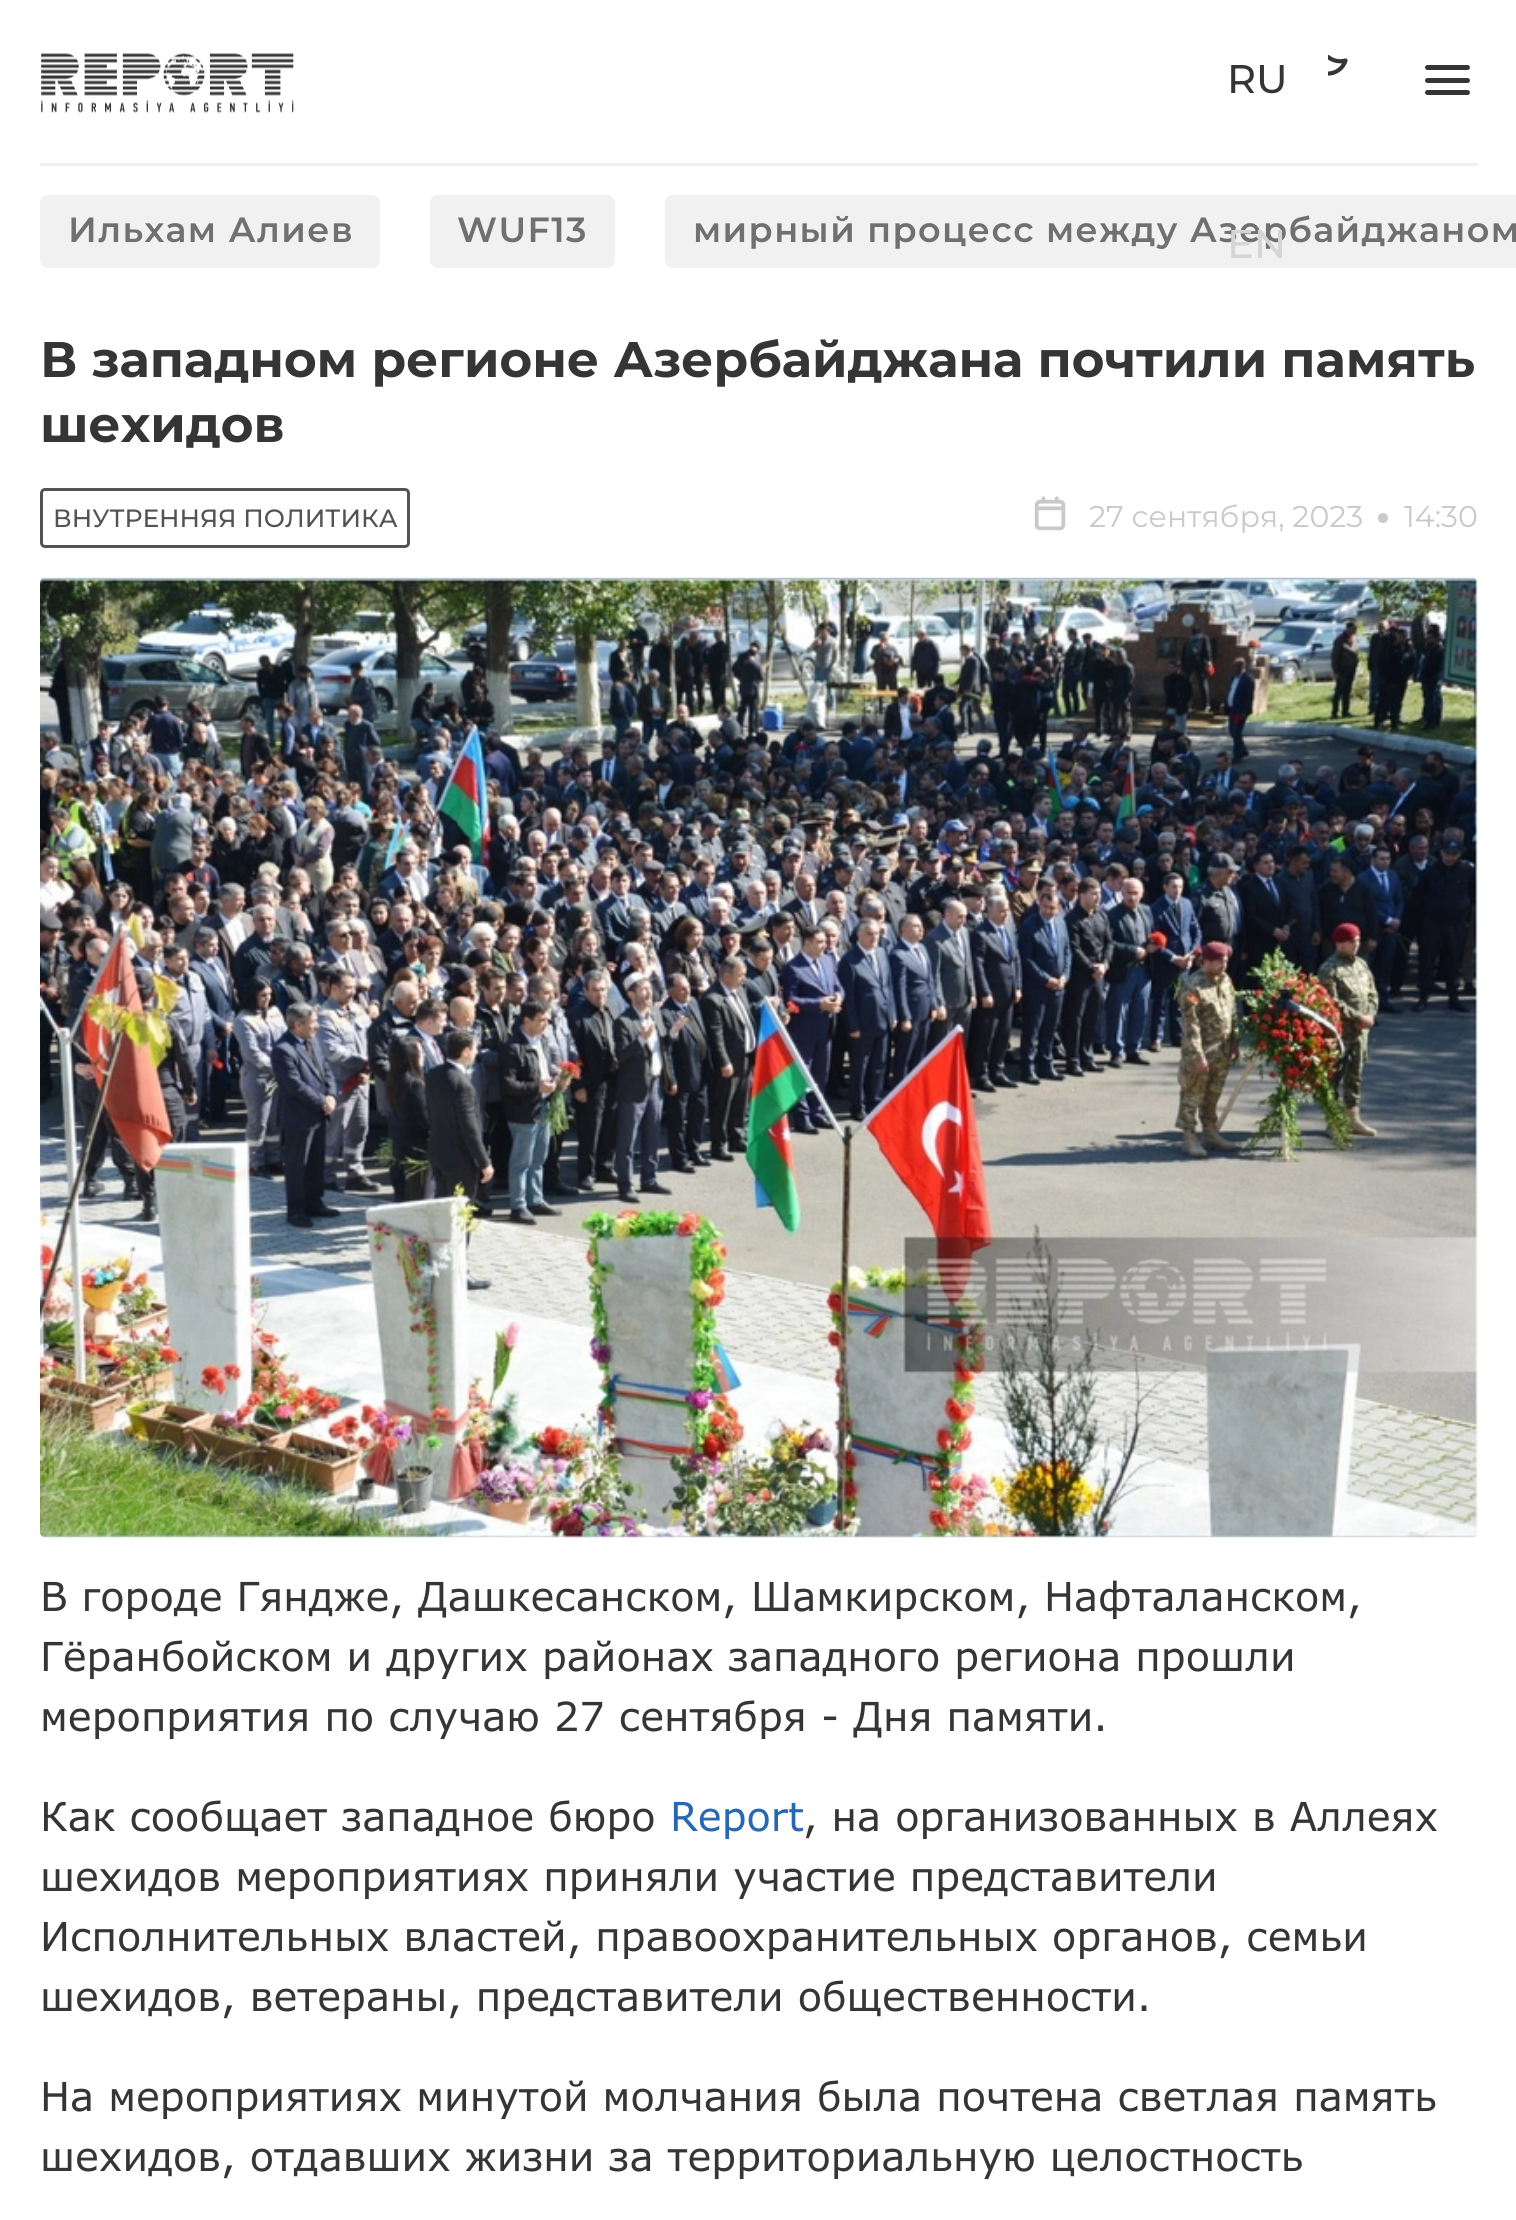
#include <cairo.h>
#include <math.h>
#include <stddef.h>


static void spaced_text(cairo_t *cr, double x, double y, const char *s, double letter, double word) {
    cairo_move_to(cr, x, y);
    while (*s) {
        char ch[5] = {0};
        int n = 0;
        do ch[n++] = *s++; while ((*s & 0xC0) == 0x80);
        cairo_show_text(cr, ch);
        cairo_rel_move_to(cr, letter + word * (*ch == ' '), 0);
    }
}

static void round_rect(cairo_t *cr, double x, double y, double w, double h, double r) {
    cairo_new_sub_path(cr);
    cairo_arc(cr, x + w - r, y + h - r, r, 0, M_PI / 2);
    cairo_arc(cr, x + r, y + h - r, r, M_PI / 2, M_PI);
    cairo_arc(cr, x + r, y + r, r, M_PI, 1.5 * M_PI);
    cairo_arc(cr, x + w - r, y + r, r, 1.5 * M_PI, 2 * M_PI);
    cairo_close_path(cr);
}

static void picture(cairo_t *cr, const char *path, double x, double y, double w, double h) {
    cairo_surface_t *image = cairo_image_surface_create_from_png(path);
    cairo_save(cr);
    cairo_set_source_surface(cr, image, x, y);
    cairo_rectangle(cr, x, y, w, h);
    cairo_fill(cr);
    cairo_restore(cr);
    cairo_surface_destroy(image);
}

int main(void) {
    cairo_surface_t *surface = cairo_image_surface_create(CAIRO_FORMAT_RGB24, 1516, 2220);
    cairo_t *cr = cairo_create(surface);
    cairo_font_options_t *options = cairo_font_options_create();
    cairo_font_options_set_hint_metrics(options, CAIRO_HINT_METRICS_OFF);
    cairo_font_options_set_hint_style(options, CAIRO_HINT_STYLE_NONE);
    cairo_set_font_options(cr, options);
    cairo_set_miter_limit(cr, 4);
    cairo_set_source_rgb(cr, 1, 1, 1);
    cairo_paint(cr);
    cairo_set_source_rgb(cr, 0.937, 0.937, 0.937);
    cairo_rectangle(cr, 40, 163, 1438, 3);
    cairo_fill(cr);
    picture(cr, "img1.png", 41, 53, 253, 60);
    cairo_select_font_face(cr, "Montserrat Medium", CAIRO_FONT_SLANT_NORMAL, CAIRO_FONT_WEIGHT_NORMAL);
    cairo_set_font_size(cr, 40);
    cairo_set_source_rgb(cr, 0.208, 0.208, 0.208);
    cairo_move_to(cr, 1227, 93);
    cairo_show_text(cr, "RU");
    cairo_set_source_rgb(cr, 0.945, 0.945, 0.945);
    cairo_new_path(cr);
    cairo_move_to(cr, 673, 195);
    cairo_line_to(cr, 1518, 195);
    cairo_line_to(cr, 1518, 268);
    cairo_line_to(cr, 673, 268);
    cairo_curve_to(cr, 668.5, 268, 665, 264.5, 665, 260);
    cairo_line_to(cr, 665, 203);
    cairo_curve_to(cr, 665, 198.5, 668.5, 195, 673, 195);
    cairo_close_path(cr);
    cairo_fill(cr);
    cairo_select_font_face(cr, "Montserrat SemiBold", CAIRO_FONT_SLANT_NORMAL, CAIRO_FONT_WEIGHT_NORMAL);
    cairo_set_font_size(cr, 35);
    cairo_set_source_rgb(cr, 0.439, 0.439, 0.439);
    spaced_text(cr, 693, 242, "мирный процесс между Азербайджаном", 1.4, 0);
    cairo_select_font_face(cr, "Montserrat Medium", CAIRO_FONT_SLANT_NORMAL, CAIRO_FONT_WEIGHT_NORMAL);
    cairo_set_font_size(cr, 40);
    cairo_set_source_rgb(cr, 0.835, 0.835, 0.835);
    cairo_move_to(cr, 1227, 258);
    cairo_show_text(cr, "EN");
    cairo_save(cr);
    cairo_rectangle(cr, 1328, 55, 50, 50);
    cairo_clip(cr);
    cairo_new_path(cr);
    cairo_move_to(cr, 1321, 42.5);
    cairo_curve_to(cr, 1321, 55, 1333.5, 64, 1345.5, 60.5);
    cairo_curve_to(cr, 1343, 69, 1334.5, 74.5, 1325.5, 73.5);
    cairo_curve_to(cr, 1317, 73, 1309.5, 65.5, 1309, 57);
    cairo_curve_to(cr, 1308, 48, 1313.5, 39.5, 1322, 37);
    cairo_curve_to(cr, 1321.5, 39, 1321, 40.5, 1321, 42.5);
    cairo_close_path(cr);
    cairo_set_source_rgb(cr, 0.208, 0.208, 0.208);
    cairo_set_line_width(cr, 4.2);
    cairo_set_line_cap(cr, CAIRO_LINE_CAP_ROUND);
    cairo_set_line_join(cr, CAIRO_LINE_JOIN_ROUND);
    cairo_stroke(cr);
    cairo_restore(cr);
    cairo_set_source_rgb(cr, 0.208, 0.208, 0.208);
    round_rect(cr, 1425, 78, 45, 5, 2.5);
    cairo_fill(cr);
    round_rect(cr, 1425, 65, 45, 5, 2.5);
    cairo_fill(cr);
    round_rect(cr, 1425, 90, 45, 5, 2.5);
    cairo_fill(cr);
    cairo_set_source_rgb(cr, 0.945, 0.945, 0.945);
    round_rect(cr, 40, 195, 340, 73, 8);
    cairo_fill(cr);
    cairo_select_font_face(cr, "Montserrat SemiBold", CAIRO_FONT_SLANT_NORMAL, CAIRO_FONT_WEIGHT_NORMAL);
    cairo_set_font_size(cr, 35);
    cairo_set_source_rgb(cr, 0.439, 0.439, 0.439);
    spaced_text(cr, 68, 242, "Ильхам Алиев", 1.4, 0);
    cairo_set_source_rgb(cr, 0.945, 0.945, 0.945);
    round_rect(cr, 430, 195, 185, 73, 8);
    cairo_fill(cr);
    cairo_set_source_rgb(cr, 0.439, 0.439, 0.439);
    spaced_text(cr, 457, 242, "WUF13", 1.4, 0);
    cairo_select_font_face(cr, "Montserrat", CAIRO_FONT_SLANT_NORMAL, CAIRO_FONT_WEIGHT_BOLD);
    cairo_set_font_size(cr, 50);
    cairo_set_source_rgb(cr, 0.208, 0.208, 0.208);
    cairo_move_to(cr, 40, 377);
    cairo_show_text(cr, "В западном регионе Азербайджана почтили память");
    cairo_move_to(cr, 40, 442);
    cairo_show_text(cr, "шехидов");
    round_rect(cr, 41.5, 489.5, 367, 57, 3.5);
    cairo_set_source_rgb(cr, 0.325, 0.325, 0.325);
    cairo_set_line_width(cr, 3);
    cairo_stroke(cr);
    cairo_select_font_face(cr, "Montserrat Medium", CAIRO_FONT_SLANT_NORMAL, CAIRO_FONT_WEIGHT_NORMAL);
    cairo_set_font_size(cr, 25);
    cairo_move_to(cr, 53, 527);
    cairo_show_text(cr, "ВНУТРЕННЯЯ ПОЛИТИКА");
    picture(cr, "img2.png", 1034, 496, 32, 35);
    cairo_select_font_face(cr, "Montserrat", CAIRO_FONT_SLANT_NORMAL, CAIRO_FONT_WEIGHT_NORMAL);
    cairo_set_font_size(cr, 30);
    cairo_set_source_rgb(cr, 0.788, 0.788, 0.788);
    cairo_move_to(cr, 1089, 527);
    cairo_show_text(cr, "27 сентября, 2023");
    cairo_new_path(cr);
    cairo_arc(cr, 1383, 518, 5, 0, 2 * M_PI);
    cairo_fill(cr);
    cairo_move_to(cr, 1404, 527);
    cairo_show_text(cr, "14:30");
    picture(cr, "img3.png", 40, 577, 1438, 961);
    cairo_select_font_face(cr, "Verdana", CAIRO_FONT_SLANT_NORMAL, CAIRO_FONT_WEIGHT_NORMAL);
    cairo_set_font_size(cr, 40);
    cairo_set_source_rgb(cr, 0.208, 0.208, 0.208);
    cairo_move_to(cr, 40, 1611);
    cairo_show_text(cr, "В городе Гяндже, Дашкесанском, Шамкирском, Нафталанском,");
    cairo_move_to(cr, 40, 1671);
    cairo_show_text(cr, "Гёранбойском и других районах западного региона прошли");
    cairo_move_to(cr, 40, 1731);
    cairo_show_text(cr, "мероприятия по случаю 27 сентября - Дня памяти.");
    cairo_move_to(cr, 40, 1831);
    cairo_show_text(cr, "Как сообщает западное бюро");
    cairo_set_source_rgb(cr, 0.157, 0.404, 0.698);
    cairo_move_to(cr, 670, 1831);
    cairo_show_text(cr, "Report");
    cairo_set_source_rgb(cr, 0.208, 0.208, 0.208);
    cairo_move_to(cr, 803, 1831);
    cairo_show_text(cr, ", на организованных в Аллеях");
    cairo_move_to(cr, 40, 1891);
    cairo_show_text(cr, "шехидов мероприятиях приняли участие представители");
    cairo_move_to(cr, 40, 1951);
    cairo_show_text(cr, "Исполнительных властей, правоохранительных органов, семьи");
    cairo_move_to(cr, 40, 2011);
    cairo_show_text(cr, "шехидов, ветераны, представители общественности.");
    cairo_move_to(cr, 40, 2111);
    cairo_show_text(cr, "На мероприятиях минутой молчания была почтена светлая память");
    cairo_move_to(cr, 40, 2171);
    cairo_show_text(cr, "шехидов, отдавших жизни за территориальную целостность");
    cairo_surface_write_to_png(surface, "page.png");
    cairo_font_options_destroy(options);
    cairo_destroy(cr);
    cairo_surface_destroy(surface);
    return 0;
}
